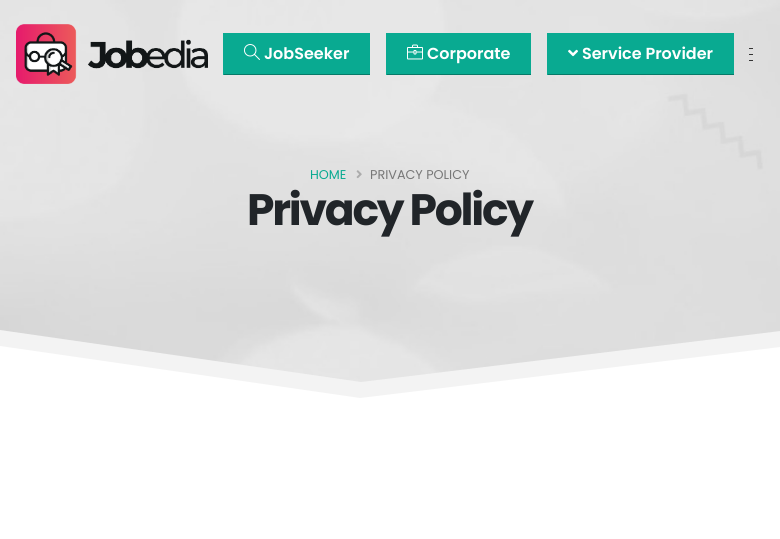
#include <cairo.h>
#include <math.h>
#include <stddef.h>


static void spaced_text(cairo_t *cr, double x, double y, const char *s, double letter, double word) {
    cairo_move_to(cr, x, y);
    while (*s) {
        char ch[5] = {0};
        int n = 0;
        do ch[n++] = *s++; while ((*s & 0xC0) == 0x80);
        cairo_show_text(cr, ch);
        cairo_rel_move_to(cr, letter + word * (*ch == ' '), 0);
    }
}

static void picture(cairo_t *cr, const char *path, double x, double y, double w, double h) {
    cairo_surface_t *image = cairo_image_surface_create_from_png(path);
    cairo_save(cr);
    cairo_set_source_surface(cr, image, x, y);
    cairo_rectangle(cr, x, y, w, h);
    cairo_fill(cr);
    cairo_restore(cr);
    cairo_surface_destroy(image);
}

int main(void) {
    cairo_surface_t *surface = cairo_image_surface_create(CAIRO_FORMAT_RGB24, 780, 539);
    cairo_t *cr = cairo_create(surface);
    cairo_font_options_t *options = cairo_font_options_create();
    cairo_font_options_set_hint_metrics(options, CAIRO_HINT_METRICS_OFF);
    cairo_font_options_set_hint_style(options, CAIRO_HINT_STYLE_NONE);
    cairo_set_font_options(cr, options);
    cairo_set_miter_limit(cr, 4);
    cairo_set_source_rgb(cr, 1, 1, 1);
    cairo_paint(cr);
    picture(cr, "img5.png", 0, 0, 780, 382);
    picture(cr, "img1.png", 16, 24, 192, 60);
    cairo_set_source_rgb(cr, 0.039, 0.667, 0.569);
    cairo_rectangle(cr, 224, 33, 146, 41);
    cairo_fill(cr);
    cairo_set_source_rgb(cr, 0.027, 0.478, 0.408);
    cairo_rectangle(cr, 223, 74, 147, 1);
    cairo_fill(cr);
    cairo_set_source_rgb(cr, 0.039, 0.667, 0.569);
    cairo_rectangle(cr, 223, 33, 1, 42);
    cairo_fill(cr);
    picture(cr, "img2.png", 244, 44, 16, 16);
    cairo_select_font_face(cr, "Poppins SemiBold", CAIRO_FONT_SLANT_NORMAL, CAIRO_FONT_WEIGHT_NORMAL);
    cairo_set_font_size(cr, 16);
    cairo_set_source_rgb(cr, 1, 1, 1);
    cairo_move_to(cr, 264, 59);
    cairo_show_text(cr, "JobSeeker");
    cairo_set_source_rgb(cr, 0.039, 0.667, 0.569);
    cairo_rectangle(cr, 387, 33, 144, 41);
    cairo_fill(cr);
    cairo_set_source_rgb(cr, 0.027, 0.478, 0.408);
    cairo_rectangle(cr, 386, 74, 145, 1);
    cairo_fill(cr);
    cairo_set_source_rgb(cr, 0.039, 0.667, 0.569);
    cairo_rectangle(cr, 386, 33, 1, 42);
    cairo_fill(cr);
    picture(cr, "img3.png", 407, 44, 16, 16);
    cairo_set_source_rgb(cr, 1, 1, 1);
    cairo_move_to(cr, 427, 59);
    cairo_show_text(cr, "Corporate");
    cairo_set_source_rgb(cr, 0.039, 0.667, 0.569);
    cairo_rectangle(cr, 548, 33, 186, 41);
    cairo_fill(cr);
    cairo_set_source_rgb(cr, 0.027, 0.478, 0.408);
    cairo_rectangle(cr, 547, 74, 187, 1);
    cairo_fill(cr);
    cairo_set_source_rgb(cr, 0.039, 0.667, 0.569);
    cairo_rectangle(cr, 547, 33, 1, 42);
    cairo_fill(cr);
    picture(cr, "img4.png", 568, 49, 10, 8);
    cairo_set_source_rgb(cr, 1, 1, 1);
    cairo_move_to(cr, 582, 59);
    cairo_show_text(cr, "Service Provider");
    cairo_set_source_rgb(cr, 0.2, 0.2, 0.2);
    cairo_rectangle(cr, 749, 48, 4, 1);
    cairo_fill(cr);
    cairo_rectangle(cr, 749, 54, 4, 1);
    cairo_fill(cr);
    cairo_rectangle(cr, 749, 60, 4, 1);
    cairo_fill(cr);
    cairo_select_font_face(cr, "Poppins", CAIRO_FONT_SLANT_NORMAL, CAIRO_FONT_WEIGHT_NORMAL);
    cairo_set_font_size(cr, 12.75);
    cairo_set_source_rgb(cr, 0.039, 0.667, 0.569);
    cairo_move_to(cr, 310, 179);
    cairo_show_text(cr, "HOME");
    picture(cr, "img6.png", 356, 170, 6, 9);
    cairo_set_source_rgb(cr, 0.467, 0.467, 0.467);
    cairo_move_to(cr, 370, 179);
    cairo_show_text(cr, "PRIVACY POLICY");
    cairo_select_font_face(cr, "Poppins", CAIRO_FONT_SLANT_NORMAL, CAIRO_FONT_WEIGHT_BOLD);
    cairo_set_font_size(cr, 44);
    cairo_set_source_rgb(cr, 0.129, 0.145, 0.161);
    spaced_text(cr, 247, 225, "Privacy Policy", -2.25, 0);
    cairo_save(cr);
    cairo_rectangle(cr, 0, 294, 780, 123);
    cairo_clip(cr);
    cairo_set_source_rgb(cr, 0.953, 0.953, 0.953);
    cairo_new_path(cr);
    cairo_move_to(cr, -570, 327);
    cairo_line_to(cr, -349, 357);
    cairo_line_to(cr, -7, 329);
    cairo_line_to(cr, 361, 382);
    cairo_line_to(cr, 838, 324);
    cairo_line_to(cr, 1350, 376);
    cairo_line_to(cr, 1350, 418);
    cairo_line_to(cr, -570, 418);
    cairo_close_path(cr);
    cairo_fill(cr);
    cairo_set_source_rgb(cr, 1, 1, 1);
    cairo_new_path(cr);
    cairo_move_to(cr, -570, 342);
    cairo_line_to(cr, -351, 373);
    cairo_line_to(cr, -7, 345);
    cairo_line_to(cr, 360, 398);
    cairo_line_to(cr, 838, 340);
    cairo_line_to(cr, 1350, 392);
    cairo_line_to(cr, 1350, 418);
    cairo_line_to(cr, -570, 418);
    cairo_close_path(cr);
    cairo_fill(cr);
    cairo_restore(cr);
    cairo_surface_write_to_png(surface, "page.png");
    cairo_font_options_destroy(options);
    cairo_destroy(cr);
    cairo_surface_destroy(surface);
    return 0;
}
